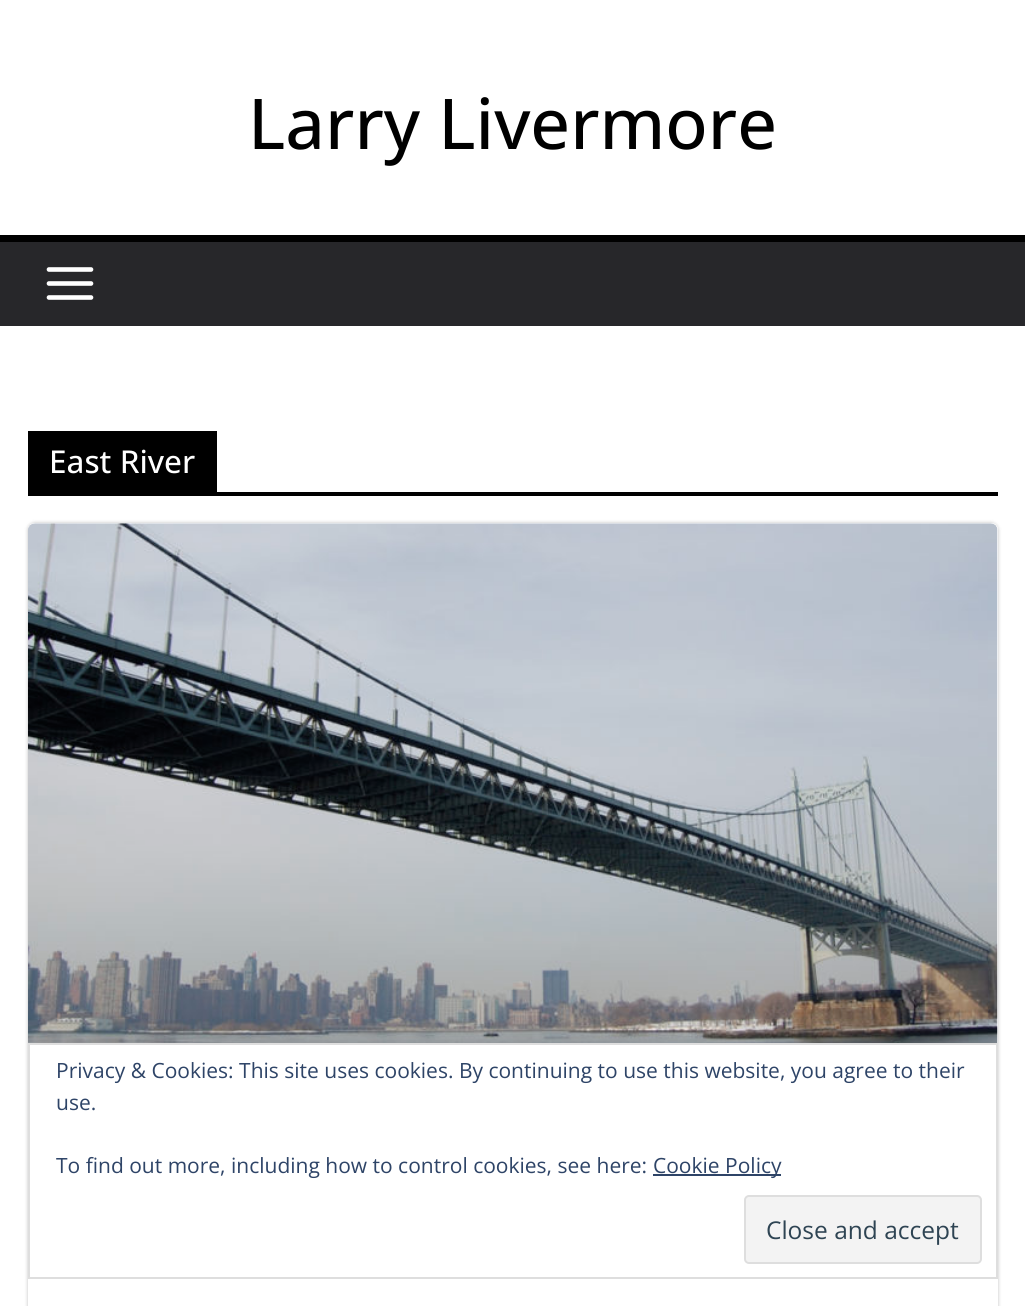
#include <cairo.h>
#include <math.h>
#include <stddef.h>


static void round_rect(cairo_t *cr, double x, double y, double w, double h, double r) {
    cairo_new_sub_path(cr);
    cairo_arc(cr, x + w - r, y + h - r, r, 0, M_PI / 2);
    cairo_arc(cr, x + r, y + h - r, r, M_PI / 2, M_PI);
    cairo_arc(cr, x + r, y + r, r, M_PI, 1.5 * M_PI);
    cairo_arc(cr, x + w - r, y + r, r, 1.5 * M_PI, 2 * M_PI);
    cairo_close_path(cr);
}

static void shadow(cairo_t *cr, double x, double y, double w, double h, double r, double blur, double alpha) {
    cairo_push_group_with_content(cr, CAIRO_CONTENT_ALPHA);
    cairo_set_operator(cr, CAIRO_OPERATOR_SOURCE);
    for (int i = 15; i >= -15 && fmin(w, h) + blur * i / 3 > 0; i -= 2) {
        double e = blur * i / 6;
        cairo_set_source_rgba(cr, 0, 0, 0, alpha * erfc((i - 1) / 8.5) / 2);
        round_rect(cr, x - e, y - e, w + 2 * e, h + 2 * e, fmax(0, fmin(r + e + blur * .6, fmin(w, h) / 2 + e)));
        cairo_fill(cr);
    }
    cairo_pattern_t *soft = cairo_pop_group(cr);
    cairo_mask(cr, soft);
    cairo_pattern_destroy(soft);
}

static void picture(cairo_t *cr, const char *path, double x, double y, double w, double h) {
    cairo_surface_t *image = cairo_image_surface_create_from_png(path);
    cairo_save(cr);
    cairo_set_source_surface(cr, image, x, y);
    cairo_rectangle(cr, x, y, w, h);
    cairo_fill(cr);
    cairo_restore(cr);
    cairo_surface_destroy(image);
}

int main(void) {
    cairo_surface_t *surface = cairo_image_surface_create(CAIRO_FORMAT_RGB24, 1025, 1306);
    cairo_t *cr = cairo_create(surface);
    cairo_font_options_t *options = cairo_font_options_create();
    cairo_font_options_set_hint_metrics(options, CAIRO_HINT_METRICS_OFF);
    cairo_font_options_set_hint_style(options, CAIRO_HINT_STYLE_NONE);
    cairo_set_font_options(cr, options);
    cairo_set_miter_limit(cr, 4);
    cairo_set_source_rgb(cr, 1, 1, 1);
    cairo_paint(cr);
    cairo_select_font_face(cr, "Open Sans Medium", CAIRO_FONT_SLANT_NORMAL, CAIRO_FONT_WEIGHT_NORMAL);
    cairo_set_font_size(cr, 70);
    cairo_set_source_rgb(cr, 0, 0, 0);
    cairo_move_to(cr, 248, 149);
    cairo_show_text(cr, "Larry Livermore");
    cairo_set_source_rgb(cr, 0.153, 0.153, 0.165);
    cairo_rectangle(cr, 0, 242, 1025, 84);
    cairo_fill(cr);
    cairo_set_source_rgb(cr, 0, 0, 0);
    cairo_rectangle(cr, 0, 235, 1025, 7);
    cairo_fill(cr);
    picture(cr, "img1.png", 46, 267, 48, 33);
    cairo_rectangle(cr, 28, 492, 970, 4);
    cairo_fill(cr);
    cairo_rectangle(cr, 28, 431, 189, 61);
    cairo_fill(cr);
    cairo_set_font_size(cr, 31.5);
    cairo_set_source_rgb(cr, 1, 1, 1);
    cairo_move_to(cr, 49, 473);
    cairo_show_text(cr, "East River");
    cairo_save(cr);
    cairo_set_fill_rule(cr, CAIRO_FILL_RULE_EVEN_ODD);
    cairo_new_path(cr);
    cairo_move_to(cr, 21, 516);
    cairo_line_to(cr, 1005, 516);
    cairo_line_to(cr, 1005, 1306);
    cairo_line_to(cr, 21, 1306);
    cairo_close_path(cr);
    cairo_move_to(cr, 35, 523);
    cairo_line_to(cr, 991, 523);
    cairo_curve_to(cr, 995, 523, 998, 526, 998, 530);
    cairo_line_to(cr, 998, 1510);
    cairo_curve_to(cr, 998, 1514, 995, 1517, 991, 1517);
    cairo_line_to(cr, 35, 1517);
    cairo_curve_to(cr, 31, 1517, 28, 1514, 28, 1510);
    cairo_line_to(cr, 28, 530);
    cairo_curve_to(cr, 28, 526, 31, 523, 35, 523);
    cairo_close_path(cr);
    cairo_clip(cr);
    cairo_set_source_rgb(cr, 0, 0, 0);
    shadow(cr, 28, 523, 970, 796, 7, 2, 0.24);
    cairo_restore(cr);
    picture(cr, "img2.png", 28, 523, 970, 520);
    cairo_rectangle(cr, 29, 1044, 968, 234);
    cairo_set_source_rgb(cr, 0.871, 0.871, 0.871);
    cairo_stroke(cr);
    cairo_select_font_face(cr, "Open Sans", CAIRO_FONT_SLANT_NORMAL, CAIRO_FONT_WEIGHT_NORMAL);
    cairo_set_font_size(cr, 21);
    cairo_set_source_rgb(cr, 0.18, 0.267, 0.404);
    cairo_move_to(cr, 56, 1078);
    cairo_show_text(cr, "Privacy & Cookies: This site uses cookies. By continuing to use this website, you agree to their");
    cairo_move_to(cr, 56, 1110);
    cairo_show_text(cr, "use.");
    cairo_move_to(cr, 56, 1173);
    cairo_show_text(cr, "To find out more, including how to control cookies, see here:");
    cairo_rectangle(cr, 653, 1174, 128, 2);
    cairo_fill(cr);
    cairo_move_to(cr, 653, 1173);
    cairo_show_text(cr, "Cookie Policy");
    cairo_set_source_rgb(cr, 0.953, 0.953, 0.953);
    round_rect(cr, 745, 1196, 236, 67, 4);
    cairo_fill_preserve(cr);
    cairo_set_source_rgb(cr, 0.871, 0.871, 0.871);
    cairo_stroke(cr);
    cairo_set_font_size(cr, 24.5);
    cairo_set_source_rgb(cr, 0.18, 0.267, 0.325);
    cairo_move_to(cr, 766, 1239);
    cairo_show_text(cr, "Close and accept");
    cairo_surface_write_to_png(surface, "page.png");
    cairo_font_options_destroy(options);
    cairo_destroy(cr);
    cairo_surface_destroy(surface);
    return 0;
}
